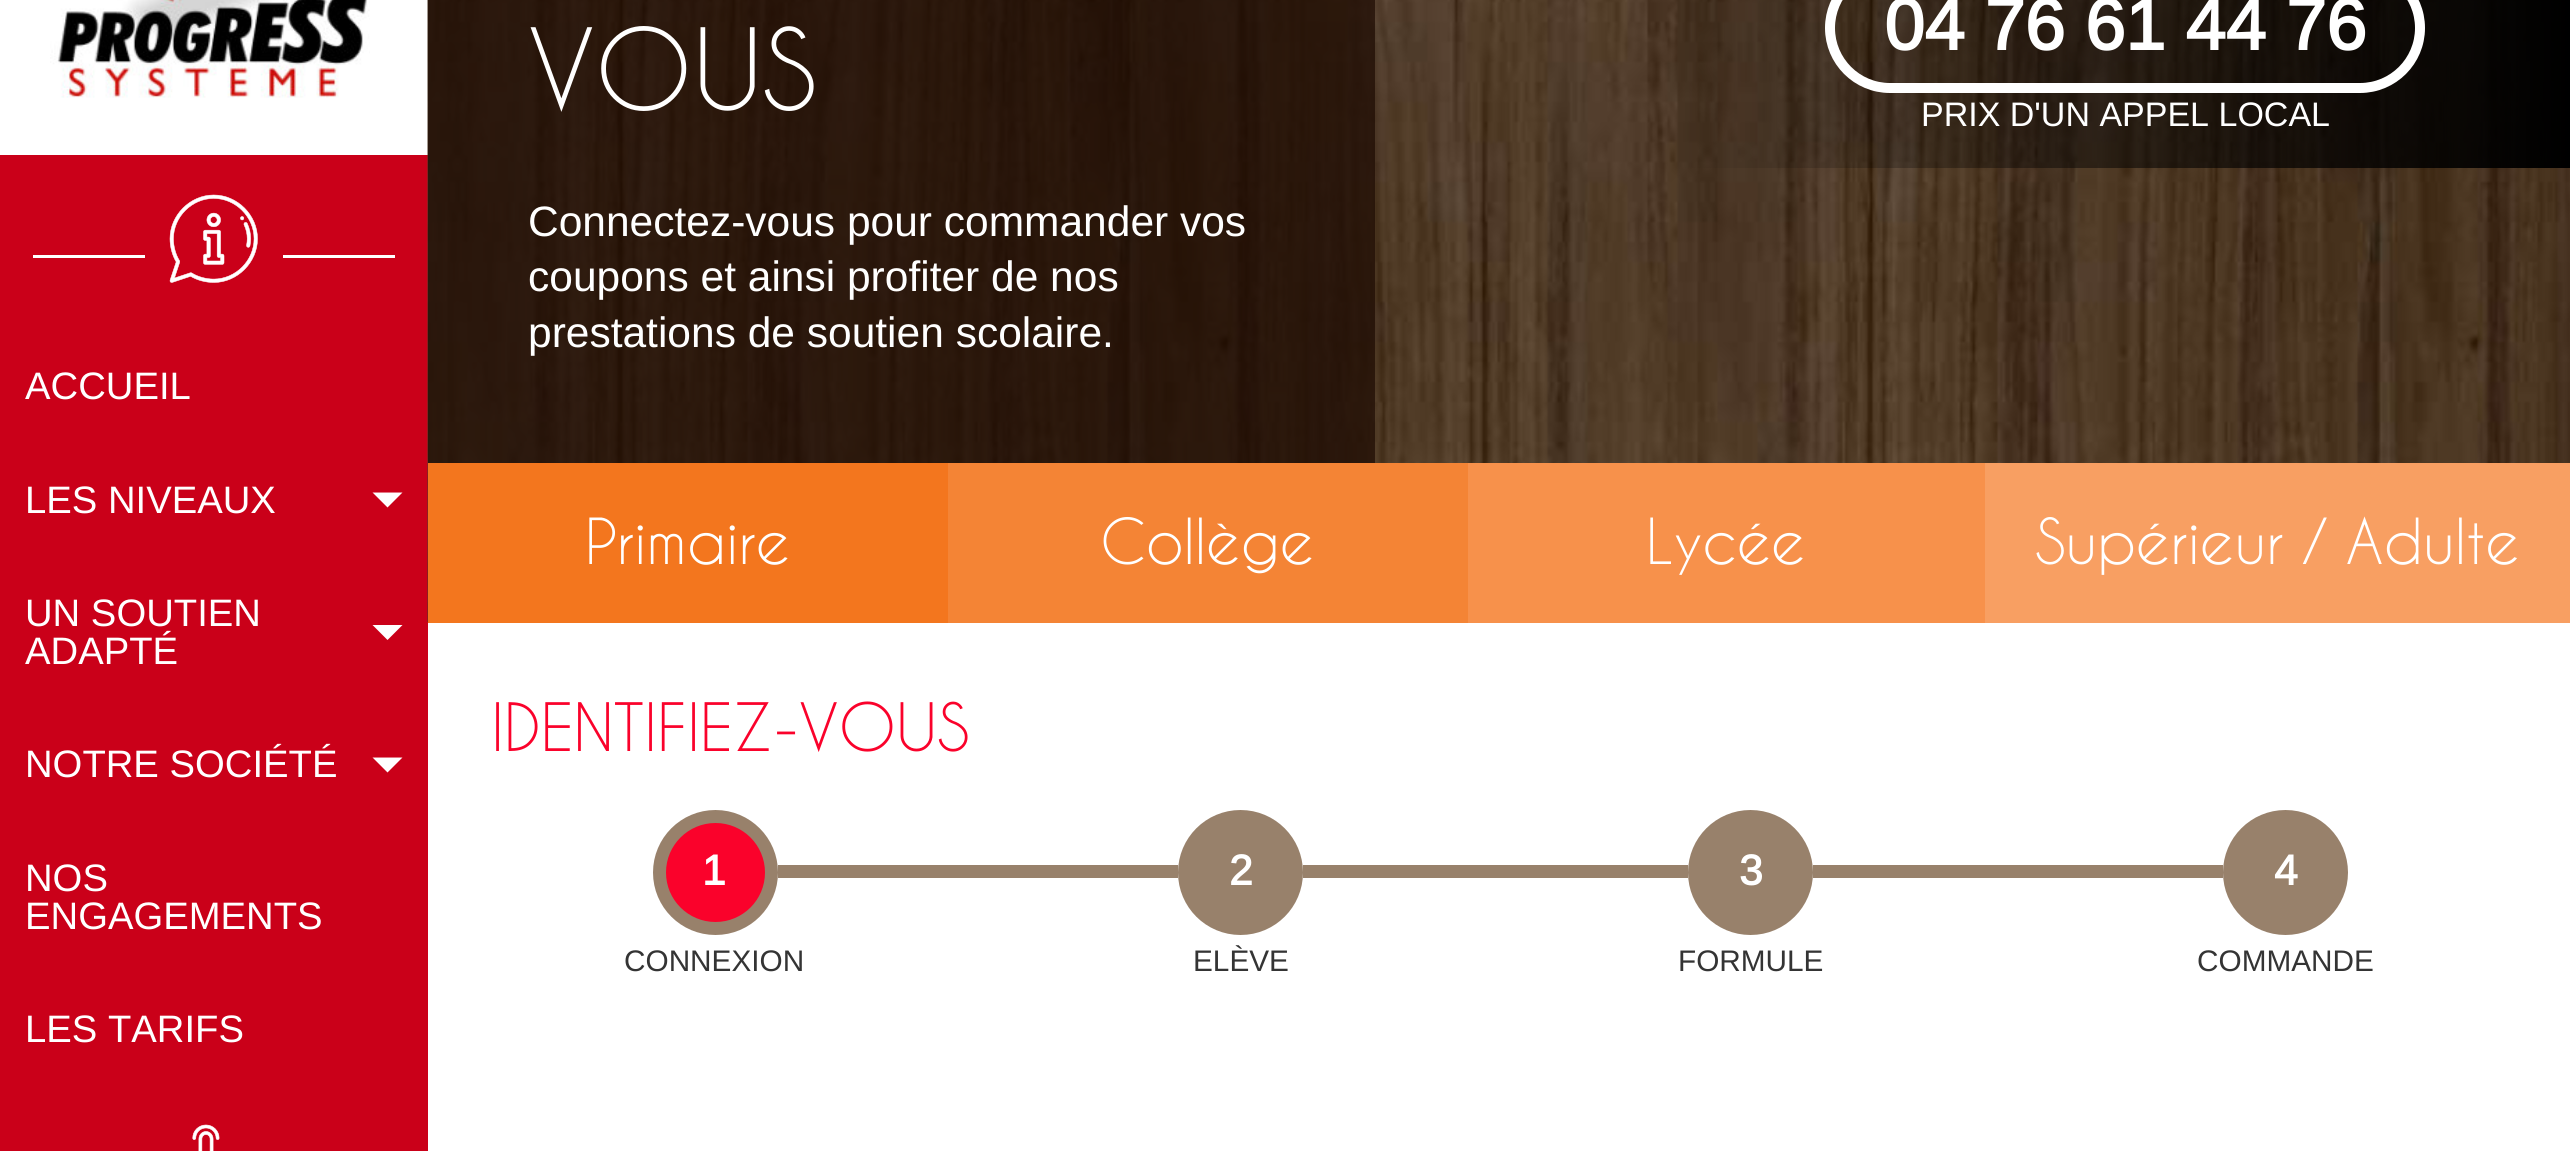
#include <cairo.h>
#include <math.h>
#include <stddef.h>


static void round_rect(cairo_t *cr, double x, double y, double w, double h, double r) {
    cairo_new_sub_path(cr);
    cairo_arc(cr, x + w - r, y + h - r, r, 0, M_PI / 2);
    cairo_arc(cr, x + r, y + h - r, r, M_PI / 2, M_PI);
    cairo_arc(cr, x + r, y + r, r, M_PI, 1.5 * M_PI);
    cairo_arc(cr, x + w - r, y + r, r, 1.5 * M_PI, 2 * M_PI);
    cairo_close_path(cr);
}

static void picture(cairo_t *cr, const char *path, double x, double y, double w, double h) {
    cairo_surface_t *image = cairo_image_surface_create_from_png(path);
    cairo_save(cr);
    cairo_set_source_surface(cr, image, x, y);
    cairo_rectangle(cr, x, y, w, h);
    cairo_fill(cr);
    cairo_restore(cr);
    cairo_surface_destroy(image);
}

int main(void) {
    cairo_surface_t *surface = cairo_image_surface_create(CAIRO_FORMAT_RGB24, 2570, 1151);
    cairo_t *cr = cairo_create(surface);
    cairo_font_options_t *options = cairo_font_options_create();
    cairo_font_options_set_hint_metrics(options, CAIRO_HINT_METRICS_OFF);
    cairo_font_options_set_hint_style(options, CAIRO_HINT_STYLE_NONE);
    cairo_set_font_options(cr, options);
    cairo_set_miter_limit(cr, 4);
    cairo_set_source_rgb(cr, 1, 1, 1);
    cairo_paint(cr);
    cairo_set_source_rgb(cr, 0.792, 0, 0.098);
    cairo_rectangle(cr, 0, 155, 428, 996);
    cairo_fill(cr);
    picture(cr, "img1.png", 50, 0, 320, 98);
    picture(cr, "img4.png", 427, 0, 2143, 622);
    round_rect(cr, 1830, -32, 590, 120, 60);
    cairo_set_source_rgb(cr, 1, 1, 1);
    cairo_set_line_width(cr, 10);
    cairo_stroke(cr);
    cairo_select_font_face(cr, "Arimo", CAIRO_FONT_SLANT_NORMAL, CAIRO_FONT_WEIGHT_BOLD);
    cairo_set_font_size(cr, 72.25);
    cairo_move_to(cr, 1884, 50);
    cairo_show_text(cr, "04 76 61 44 76");
    cairo_select_font_face(cr, "Arimo", CAIRO_FONT_SLANT_NORMAL, CAIRO_FONT_WEIGHT_NORMAL);
    cairo_set_font_size(cr, 34);
    cairo_move_to(cr, 1921, 126);
    cairo_show_text(cr, "PRIX D'UN APPEL LOCAL");
    cairo_rectangle(cr, 33, 255, 362, 3);
    cairo_fill(cr);
    cairo_set_source_rgb(cr, 0.792, 0, 0.098);
    cairo_rectangle(cr, 145, 255, 138, 3);
    cairo_fill(cr);
    picture(cr, "img2.png", 169, 194, 89, 89);
    cairo_set_font_size(cr, 38.25);
    cairo_set_source_rgb(cr, 1, 1, 1);
    cairo_move_to(cr, 25, 399);
    cairo_show_text(cr, "ACCUEIL");
    cairo_move_to(cr, 25, 513);
    cairo_show_text(cr, "LES NIVEAUX");
    cairo_new_path(cr);
    cairo_move_to(cr, 372.5, 492.5);
    cairo_line_to(cr, 402.5, 492.5);
    cairo_line_to(cr, 387.5, 507.5);
    cairo_close_path(cr);
    cairo_fill(cr);
    cairo_move_to(cr, 25, 626);
    cairo_show_text(cr, "UN SOUTIEN");
    cairo_move_to(cr, 25, 664);
    cairo_show_text(cr, "ADAPTÉ");
    cairo_new_path(cr);
    cairo_move_to(cr, 372.5, 625);
    cairo_line_to(cr, 402.5, 625);
    cairo_line_to(cr, 387.5, 640);
    cairo_close_path(cr);
    cairo_fill(cr);
    cairo_move_to(cr, 25, 777);
    cairo_show_text(cr, "NOTRE SOCIÉTÉ");
    cairo_new_path(cr);
    cairo_move_to(cr, 372.5, 757.5);
    cairo_line_to(cr, 402.5, 757.5);
    cairo_line_to(cr, 387.5, 772.5);
    cairo_close_path(cr);
    cairo_fill(cr);
    cairo_move_to(cr, 25, 891);
    cairo_show_text(cr, "NOS");
    cairo_move_to(cr, 25, 929);
    cairo_show_text(cr, "ENGAGEMENTS");
    cairo_move_to(cr, 25, 1042);
    cairo_show_text(cr, "LES TARIFS");
    picture(cr, "img3.png", 192, 1124, 28, 27);
    cairo_set_source_rgba(cr, 0.114, 0.043, 0.008, 0.7);
    cairo_rectangle(cr, 428, 0, 947, 463);
    cairo_fill(cr);
    cairo_select_font_face(cr, "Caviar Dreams", CAIRO_FONT_SLANT_NORMAL, CAIRO_FONT_WEIGHT_NORMAL);
    cairo_set_font_size(cr, 106);
    cairo_set_source_rgb(cr, 1, 1, 1);
    cairo_move_to(cr, 528, 110);
    cairo_show_text(cr, "VOUS");
    cairo_select_font_face(cr, "Arimo", CAIRO_FONT_SLANT_NORMAL, CAIRO_FONT_WEIGHT_NORMAL);
    cairo_set_font_size(cr, 42.5);
    cairo_move_to(cr, 528, 236);
    cairo_show_text(cr, "Connectez-vous pour commander vos");
    cairo_move_to(cr, 528, 291);
    cairo_show_text(cr, "coupons et ainsi profiter de nos");
    cairo_move_to(cr, 528, 347);
    cairo_show_text(cr, "prestations de soutien scolaire.");
    cairo_set_source_rgb(cr, 0.953, 0.463, 0.118);
    cairo_rectangle(cr, 428, 463, 520, 160);
    cairo_fill(cr);
    cairo_select_font_face(cr, "Caviar Dreams", CAIRO_FONT_SLANT_NORMAL, CAIRO_FONT_WEIGHT_NORMAL);
    cairo_set_font_size(cr, 59.5);
    cairo_set_source_rgb(cr, 1, 1, 1);
    cairo_move_to(cr, 585, 564);
    cairo_show_text(cr, "Primaire");
    cairo_set_source_rgb(cr, 0.957, 0.518, 0.208);
    cairo_rectangle(cr, 948, 463, 520, 160);
    cairo_fill(cr);
    cairo_set_source_rgb(cr, 1, 1, 1);
    cairo_move_to(cr, 1100, 564);
    cairo_show_text(cr, "Collège");
    cairo_set_source_rgb(cr, 0.965, 0.569, 0.294);
    cairo_rectangle(cr, 1468, 463, 517, 160);
    cairo_fill(cr);
    cairo_set_source_rgb(cr, 1, 1, 1);
    cairo_move_to(cr, 1646, 564);
    cairo_show_text(cr, "Lycée");
    cairo_set_source_rgb(cr, 0.969, 0.624, 0.384);
    cairo_rectangle(cr, 1985, 463, 585, 160);
    cairo_fill(cr);
    cairo_set_source_rgb(cr, 1, 1, 1);
    cairo_move_to(cr, 2035, 564);
    cairo_show_text(cr, "Supérieur / Adulte");
    cairo_set_font_size(cr, 62.5);
    cairo_set_source_rgb(cr, 0.98, 0.008, 0.169);
    cairo_move_to(cr, 491, 751);
    cairo_show_text(cr, "IDENTIFIEZ-VOUS");
    cairo_new_path(cr);
    cairo_arc(cr, 715.5, 872.5, 56, 0, 2 * M_PI);
    cairo_fill_preserve(cr);
    cairo_set_source_rgb(cr, 0.596, 0.506, 0.42);
    cairo_set_line_width(cr, 13);
    cairo_stroke(cr);
    cairo_select_font_face(cr, "Arimo", CAIRO_FONT_SLANT_NORMAL, CAIRO_FONT_WEIGHT_BOLD);
    cairo_set_font_size(cr, 42.5);
    cairo_set_source_rgb(cr, 1, 1, 1);
    cairo_move_to(cr, 702, 885);
    cairo_show_text(cr, "1");
    cairo_set_source_rgb(cr, 0.596, 0.506, 0.42);
    cairo_rectangle(cr, 778, 865, 400, 13);
    cairo_fill(cr);
    cairo_select_font_face(cr, "Arimo", CAIRO_FONT_SLANT_NORMAL, CAIRO_FONT_WEIGHT_NORMAL);
    cairo_set_font_size(cr, 29.75);
    cairo_set_source_rgb(cr, 0.204, 0.204, 0.204);
    cairo_move_to(cr, 624, 971);
    cairo_show_text(cr, "CONNEXION");
    cairo_set_source_rgb(cr, 0.596, 0.506, 0.42);
    cairo_new_path(cr);
    cairo_arc(cr, 1240.5, 872.5, 56, 0, 2 * M_PI);
    cairo_fill_preserve(cr);
    cairo_stroke(cr);
    cairo_select_font_face(cr, "Arimo", CAIRO_FONT_SLANT_NORMAL, CAIRO_FONT_WEIGHT_BOLD);
    cairo_set_font_size(cr, 42.5);
    cairo_set_source_rgb(cr, 1, 1, 1);
    cairo_move_to(cr, 1229, 885);
    cairo_show_text(cr, "2");
    cairo_set_source_rgb(cr, 0.596, 0.506, 0.42);
    cairo_rectangle(cr, 1303, 865, 385, 13);
    cairo_fill(cr);
    cairo_select_font_face(cr, "Arimo", CAIRO_FONT_SLANT_NORMAL, CAIRO_FONT_WEIGHT_NORMAL);
    cairo_set_font_size(cr, 29.75);
    cairo_set_source_rgb(cr, 0.204, 0.204, 0.204);
    cairo_move_to(cr, 1193, 971);
    cairo_show_text(cr, "ELÈVE");
    cairo_set_source_rgb(cr, 0.596, 0.506, 0.42);
    cairo_new_path(cr);
    cairo_arc(cr, 1750.5, 872.5, 56, 0, 2 * M_PI);
    cairo_fill_preserve(cr);
    cairo_stroke(cr);
    cairo_select_font_face(cr, "Arimo", CAIRO_FONT_SLANT_NORMAL, CAIRO_FONT_WEIGHT_BOLD);
    cairo_set_font_size(cr, 42.5);
    cairo_set_source_rgb(cr, 1, 1, 1);
    cairo_move_to(cr, 1739, 885);
    cairo_show_text(cr, "3");
    cairo_set_source_rgb(cr, 0.596, 0.506, 0.42);
    cairo_rectangle(cr, 1813, 865, 410, 13);
    cairo_fill(cr);
    cairo_select_font_face(cr, "Arimo", CAIRO_FONT_SLANT_NORMAL, CAIRO_FONT_WEIGHT_NORMAL);
    cairo_set_font_size(cr, 29.75);
    cairo_set_source_rgb(cr, 0.204, 0.204, 0.204);
    cairo_move_to(cr, 1678, 971);
    cairo_show_text(cr, "FORMULE");
    cairo_set_source_rgb(cr, 0.596, 0.506, 0.42);
    cairo_new_path(cr);
    cairo_arc(cr, 2285.5, 872.5, 56, 0, 2 * M_PI);
    cairo_fill_preserve(cr);
    cairo_stroke(cr);
    cairo_select_font_face(cr, "Arimo", CAIRO_FONT_SLANT_NORMAL, CAIRO_FONT_WEIGHT_BOLD);
    cairo_set_font_size(cr, 42.5);
    cairo_set_source_rgb(cr, 1, 1, 1);
    cairo_move_to(cr, 2274, 885);
    cairo_show_text(cr, "4");
    cairo_select_font_face(cr, "Arimo", CAIRO_FONT_SLANT_NORMAL, CAIRO_FONT_WEIGHT_NORMAL);
    cairo_set_font_size(cr, 29.75);
    cairo_set_source_rgb(cr, 0.204, 0.204, 0.204);
    cairo_move_to(cr, 2197, 971);
    cairo_show_text(cr, "COMMANDE");
    cairo_surface_write_to_png(surface, "page.png");
    cairo_font_options_destroy(options);
    cairo_destroy(cr);
    cairo_surface_destroy(surface);
    return 0;
}
